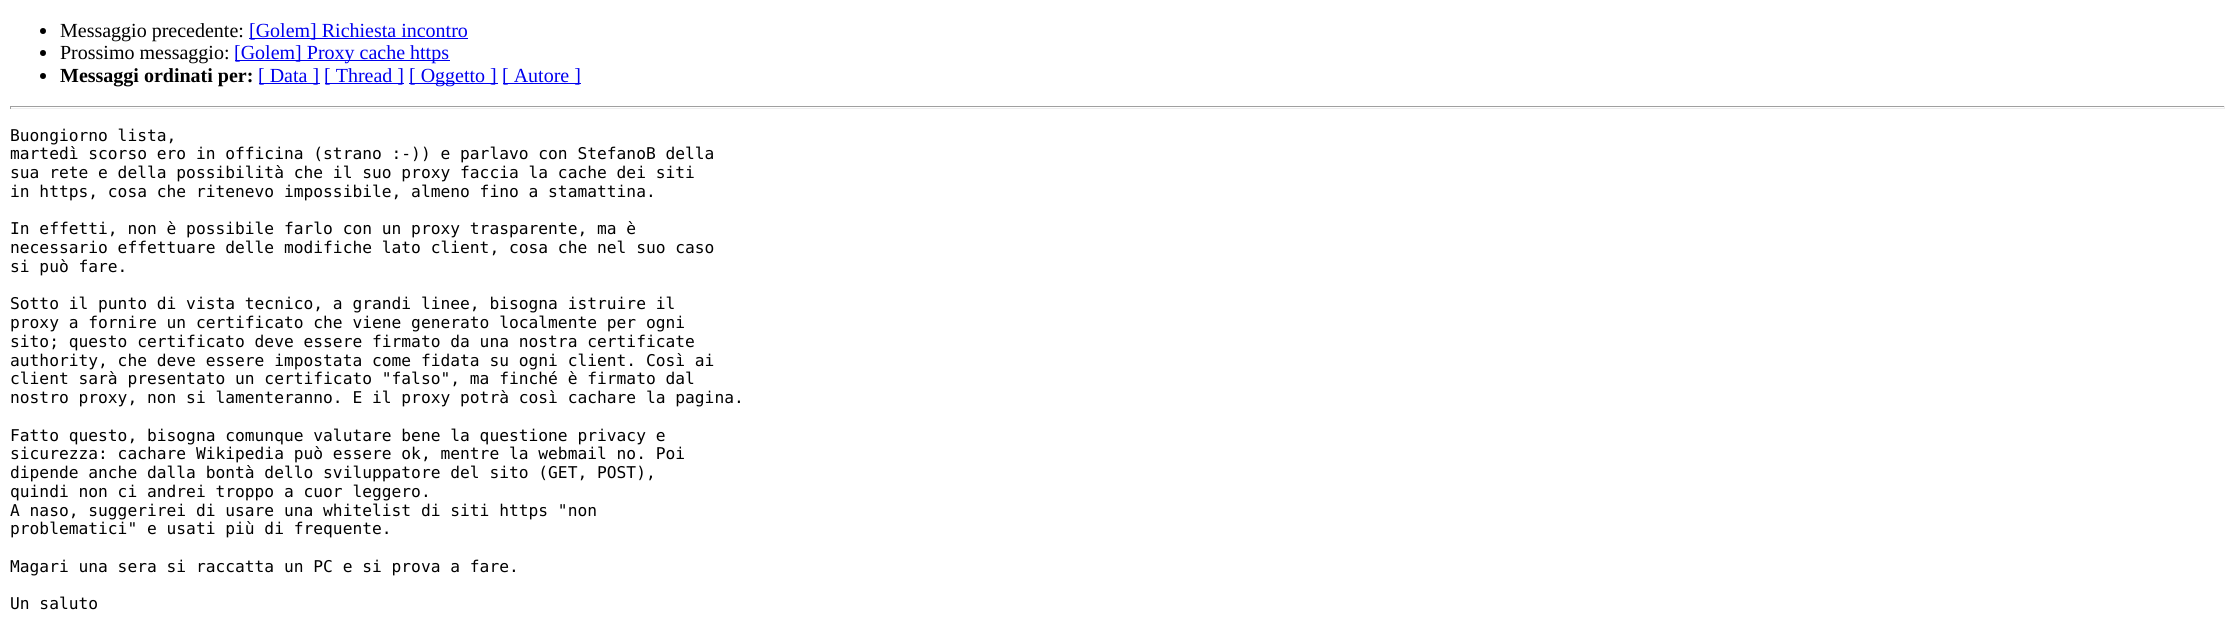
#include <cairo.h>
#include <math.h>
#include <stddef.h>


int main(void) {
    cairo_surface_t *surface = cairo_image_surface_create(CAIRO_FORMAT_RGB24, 2234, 641);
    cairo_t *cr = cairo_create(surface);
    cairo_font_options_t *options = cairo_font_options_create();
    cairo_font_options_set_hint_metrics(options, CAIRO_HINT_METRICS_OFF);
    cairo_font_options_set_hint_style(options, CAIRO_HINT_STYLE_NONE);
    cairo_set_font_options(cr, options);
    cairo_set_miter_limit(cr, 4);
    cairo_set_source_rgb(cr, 1, 1, 1);
    cairo_paint(cr);
    cairo_set_source_rgb(cr, 0, 0, 0);
    cairo_arc(cr, 43, 31, 3, 0, 2 * M_PI);
    cairo_fill(cr);
    cairo_select_font_face(cr, "Liberation Serif", CAIRO_FONT_SLANT_NORMAL, CAIRO_FONT_WEIGHT_NORMAL);
    cairo_set_font_size(cr, 20);
    cairo_move_to(cr, 60, 37);
    cairo_show_text(cr, "Messaggio precedente:");
    cairo_set_source_rgb(cr, 0, 0, 0.933);
    cairo_rectangle(cr, 249, 38, 219, 1);
    cairo_fill(cr);
    cairo_move_to(cr, 249, 37);
    cairo_show_text(cr, "[Golem] Richiesta incontro");
    cairo_set_source_rgb(cr, 0, 0, 0);
    cairo_new_path(cr);
    cairo_arc(cr, 43, 53, 3, 0, 2 * M_PI);
    cairo_fill(cr);
    cairo_move_to(cr, 60, 59);
    cairo_show_text(cr, "Prossimo messaggio:");
    cairo_set_source_rgb(cr, 0, 0, 0.933);
    cairo_rectangle(cr, 235, 60, 215, 1);
    cairo_fill(cr);
    cairo_move_to(cr, 234, 59);
    cairo_show_text(cr, "[Golem] Proxy cache https");
    cairo_set_source_rgb(cr, 0, 0, 0);
    cairo_new_path(cr);
    cairo_arc(cr, 43, 76, 3, 0, 2 * M_PI);
    cairo_fill(cr);
    cairo_select_font_face(cr, "Liberation Serif", CAIRO_FONT_SLANT_NORMAL, CAIRO_FONT_WEIGHT_BOLD);
    cairo_move_to(cr, 60, 82);
    cairo_show_text(cr, "Messaggi ordinati per:");
    cairo_set_source_rgb(cr, 0, 0, 0.933);
    cairo_rectangle(cr, 259, 83, 61, 1);
    cairo_fill(cr);
    cairo_select_font_face(cr, "Liberation Serif", CAIRO_FONT_SLANT_NORMAL, CAIRO_FONT_WEIGHT_NORMAL);
    cairo_move_to(cr, 258, 82);
    cairo_show_text(cr, "[ Data ]");
    cairo_rectangle(cr, 325, 83, 79, 1);
    cairo_fill(cr);
    cairo_move_to(cr, 324, 82);
    cairo_show_text(cr, "[ Thread ]");
    cairo_rectangle(cr, 409, 83, 89, 1);
    cairo_fill(cr);
    cairo_move_to(cr, 409, 82);
    cairo_show_text(cr, "[ Oggetto ]");
    cairo_rectangle(cr, 503, 83, 78, 1);
    cairo_fill(cr);
    cairo_move_to(cr, 502, 82);
    cairo_show_text(cr, "[ Autore ]");
    cairo_set_source_rgb(cr, 0.624, 0.624, 0.624);
    cairo_rectangle(cr, 10, 106, 2215, 1);
    cairo_fill(cr);
    cairo_set_source_rgb(cr, 0.933, 0.933, 0.933);
    cairo_rectangle(cr, 2224, 106, 1, 3);
    cairo_fill(cr);
    cairo_rectangle(cr, 10, 108, 2215, 1);
    cairo_fill(cr);
    cairo_set_source_rgb(cr, 0.624, 0.624, 0.624);
    cairo_rectangle(cr, 10, 106, 1, 3);
    cairo_fill(cr);
    cairo_select_font_face(cr, "DejaVu Sans Mono", CAIRO_FONT_SLANT_NORMAL, CAIRO_FONT_WEIGHT_NORMAL);
    cairo_set_font_size(cr, 16.25);
    cairo_set_source_rgb(cr, 0, 0, 0);
    cairo_move_to(cr, 10, 141);
    cairo_show_text(cr, "Buongiorno lista,");
    cairo_move_to(cr, 10, 159);
    cairo_show_text(cr, "martedì scorso ero in officina (strano :-)) e parlavo con StefanoB della");
    cairo_move_to(cr, 10, 178);
    cairo_show_text(cr, "sua rete e della possibilità che il suo proxy faccia la cache dei siti");
    cairo_move_to(cr, 10, 197);
    cairo_show_text(cr, "in https, cosa che ritenevo impossibile, almeno fino a stamattina.");
    cairo_move_to(cr, 10, 234);
    cairo_show_text(cr, "In effetti, non è possibile farlo con un proxy trasparente, ma è");
    cairo_move_to(cr, 10, 253);
    cairo_show_text(cr, "necessario effettuare delle modifiche lato client, cosa che nel suo caso");
    cairo_move_to(cr, 10, 272);
    cairo_show_text(cr, "si può fare.");
    cairo_move_to(cr, 10, 309);
    cairo_show_text(cr, "Sotto il punto di vista tecnico, a grandi linee, bisogna istruire il");
    cairo_move_to(cr, 10, 328);
    cairo_show_text(cr, "proxy a fornire un certificato che viene generato localmente per ogni");
    cairo_move_to(cr, 10, 347);
    cairo_show_text(cr, "sito; questo certificato deve essere firmato da una nostra certificate");
    cairo_move_to(cr, 10, 366);
    cairo_show_text(cr, "authority, che deve essere impostata come fidata su ogni client. Così ai");
    cairo_move_to(cr, 10, 384);
    cairo_show_text(cr, "client sarà presentato un certificato \"falso\", ma finché è firmato dal");
    cairo_move_to(cr, 10, 403);
    cairo_show_text(cr, "nostro proxy, non si lamenteranno. E il proxy potrà così cachare la pagina.");
    cairo_move_to(cr, 10, 441);
    cairo_show_text(cr, "Fatto questo, bisogna comunque valutare bene la questione privacy e");
    cairo_move_to(cr, 10, 459);
    cairo_show_text(cr, "sicurezza: cachare Wikipedia può essere ok, mentre la webmail no. Poi");
    cairo_move_to(cr, 10, 478);
    cairo_show_text(cr, "dipende anche dalla bontà dello sviluppatore del sito (GET, POST),");
    cairo_move_to(cr, 10, 497);
    cairo_show_text(cr, "quindi non ci andrei troppo a cuor leggero.");
    cairo_move_to(cr, 10, 516);
    cairo_show_text(cr, "A naso, suggerirei di usare una whitelist di siti https \"non");
    cairo_move_to(cr, 10, 534);
    cairo_show_text(cr, "problematici\" e usati più di frequente.");
    cairo_move_to(cr, 10, 572);
    cairo_show_text(cr, "Magari una sera si raccatta un PC e si prova a fare.");
    cairo_move_to(cr, 10, 609);
    cairo_show_text(cr, "Un saluto");
    cairo_surface_write_to_png(surface, "page.png");
    cairo_font_options_destroy(options);
    cairo_destroy(cr);
    cairo_surface_destroy(surface);
    return 0;
}
